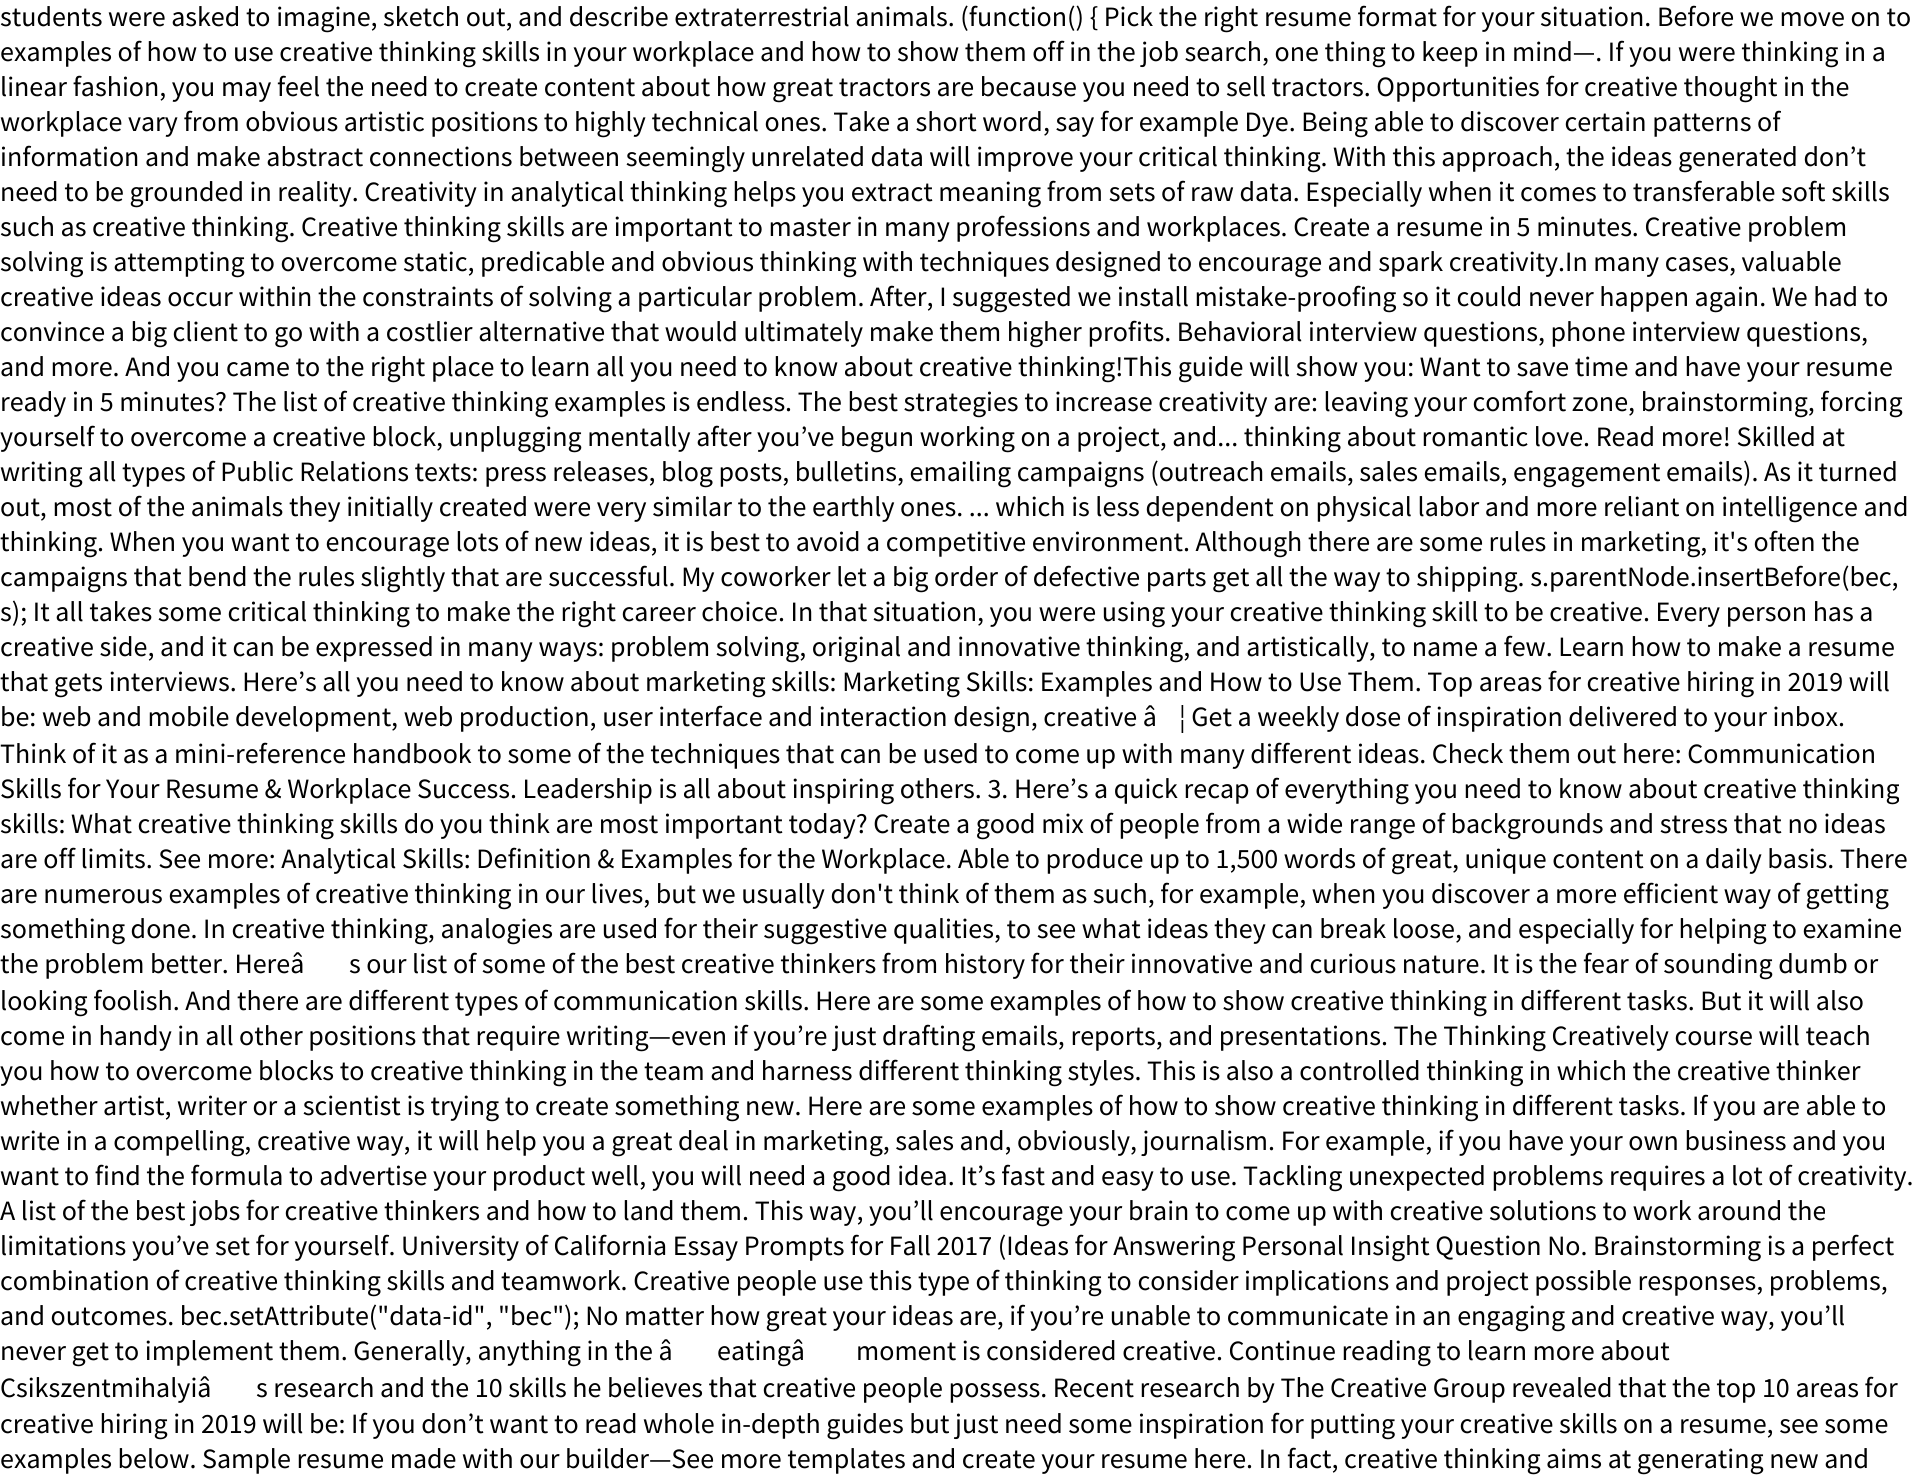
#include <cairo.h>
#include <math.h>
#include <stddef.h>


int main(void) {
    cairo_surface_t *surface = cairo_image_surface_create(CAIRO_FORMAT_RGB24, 1914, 1479);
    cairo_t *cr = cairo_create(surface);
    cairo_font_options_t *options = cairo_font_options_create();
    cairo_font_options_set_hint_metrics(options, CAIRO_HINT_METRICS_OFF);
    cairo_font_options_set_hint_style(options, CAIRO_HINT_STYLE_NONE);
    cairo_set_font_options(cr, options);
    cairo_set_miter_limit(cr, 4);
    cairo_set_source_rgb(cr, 1, 1, 1);
    cairo_paint(cr);
    cairo_select_font_face(cr, "Source Sans Pro", CAIRO_FONT_SLANT_NORMAL, CAIRO_FONT_WEIGHT_NORMAL);
    cairo_set_font_size(cr, 28);
    cairo_set_source_rgb(cr, 0, 0, 0);
    cairo_move_to(cr, 0, 26);
    cairo_show_text(cr, "students were asked to imagine, sketch out, and describe extraterrestrial animals. (function() { Pick the right resume format for your situation. Before we move on to");
    cairo_move_to(cr, 0, 61);
    cairo_show_text(cr, "examples of how to use creative thinking skills in your workplace and how to show them off in the job search, one thing to keep in mind—. If you were thinking in a");
    cairo_move_to(cr, 0, 96);
    cairo_show_text(cr, "linear fashion, you may feel the need to create content about how great tractors are because you need to sell tractors. Opportunities for creative thought in the");
    cairo_move_to(cr, 0, 131);
    cairo_show_text(cr, "workplace vary from obvious artistic positions to highly technical ones. Take a short word, say for example Dye. Being able to discover certain patterns of");
    cairo_move_to(cr, 0, 166);
    cairo_show_text(cr, "information and make abstract connections between seemingly unrelated data will improve your critical thinking. With this approach, the ideas generated don’t");
    cairo_move_to(cr, 0, 201);
    cairo_show_text(cr, "need to be grounded in reality. Creativity in analytical thinking helps you extract meaning from sets of raw data. Especially when it comes to transferable soft skills");
    cairo_move_to(cr, 0, 236);
    cairo_show_text(cr, "such as creative thinking. Creative thinking skills are important to master in many professions and workplaces. Create a resume in 5 minutes. Creative problem");
    cairo_move_to(cr, 0, 271);
    cairo_show_text(cr, "solving is attempting to overcome static, predicable and obvious thinking with techniques designed to encourage and spark creativity.In many cases, valuable");
    cairo_move_to(cr, 0, 306);
    cairo_show_text(cr, "creative ideas occur within the constraints of solving a particular problem. After, I suggested we install mistake-proofing so it could never happen again. We had to");
    cairo_move_to(cr, 0, 341);
    cairo_show_text(cr, "convince a big client to go with a costlier alternative that would ultimately make them higher profits. Behavioral interview questions, phone interview questions,");
    cairo_move_to(cr, 0, 376);
    cairo_show_text(cr, "and more. And you came to the right place to learn all you need to know about creative thinking!This guide will show you: Want to save time and have your resume");
    cairo_move_to(cr, 0, 411);
    cairo_show_text(cr, "ready in 5 minutes? The list of creative thinking examples is endless. The best strategies to increase creativity are: leaving your comfort zone, brainstorming, forcing");
    cairo_move_to(cr, 0, 446);
    cairo_show_text(cr, "yourself to overcome a creative block, unplugging mentally after you’ve begun working on a project, and... thinking about romantic love. Read more! Skilled at");
    cairo_move_to(cr, 0, 481);
    cairo_show_text(cr, "writing all types of Public Relations texts: press releases, blog posts, bulletins, emailing campaigns (outreach emails, sales emails, engagement emails). As it turned");
    cairo_move_to(cr, 0, 516);
    cairo_show_text(cr, "out, most of the animals they initially created were very similar to the earthly ones. ... which is less dependent on physical labor and more reliant on intelligence and");
    cairo_move_to(cr, 0, 551);
    cairo_show_text(cr, "thinking. When you want to encourage lots of new ideas, it is best to avoid a competitive environment. Although there are some rules in marketing, it's often the");
    cairo_move_to(cr, 0, 586);
    cairo_show_text(cr, "campaigns that bend the rules slightly that are successful. My coworker let a big order of defective parts get all the way to shipping. s.parentNode.insertBefore(bec,");
    cairo_move_to(cr, 0, 621);
    cairo_show_text(cr, "s); It all takes some critical thinking to make the right career choice. In that situation, you were using your creative thinking skill to be creative. Every person has a");
    cairo_move_to(cr, 0, 656);
    cairo_show_text(cr, "creative side, and it can be expressed in many ways: problem solving, original and innovative thinking, and artistically, to name a few. Learn how to make a resume");
    cairo_move_to(cr, 0, 691);
    cairo_show_text(cr, "that gets interviews. Here’s all you need to know about marketing skills: Marketing Skills: Examples and How to Use Them. Top areas for creative hiring in 2019 will");
    cairo_move_to(cr, 0, 726);
    cairo_show_text(cr, "be: web and mobile development, web production, user interface and interaction design, creative â");
    cairo_move_to(cr, 1179, 726);
    cairo_show_text(cr, "¦ Get a weekly dose of inspiration delivered to your inbox.");
    cairo_move_to(cr, 0, 763);
    cairo_show_text(cr, "Think of it as a mini-reference handbook to some of the techniques that can be used to come up with many different ideas. Check them out here: Communication");
    cairo_move_to(cr, 0, 798);
    cairo_show_text(cr, "Skills for Your Resume & Workplace Success. Leadership is all about inspiring others. 3. Here’s a quick recap of everything you need to know about creative thinking");
    cairo_move_to(cr, 0, 833);
    cairo_show_text(cr, "skills: What creative thinking skills do you think are most important today? Create a good mix of people from a wide range of backgrounds and stress that no ideas");
    cairo_move_to(cr, 0, 868);
    cairo_show_text(cr, "are off limits. See more: Analytical Skills: Definition & Examples for the Workplace. Able to produce up to 1,500 words of great, unique content on a daily basis. There");
    cairo_move_to(cr, 0, 903);
    cairo_show_text(cr, "are numerous examples of creative thinking in our lives, but we usually don't think of them as such, for example, when you discover a more efficient way of getting");
    cairo_move_to(cr, 0, 938);
    cairo_show_text(cr, "something done. In creative thinking, analogies are used for their suggestive qualities, to see what ideas they can break loose, and especially for helping to examine");
    cairo_move_to(cr, 0, 973);
    cairo_show_text(cr, "the problem better. Hereâ");
    cairo_move_to(cr, 349, 973);
    cairo_show_text(cr, "s our list of some of the best creative thinkers from history for their innovative and curious nature. It is the fear of sounding dumb or");
    cairo_move_to(cr, 0, 1010);
    cairo_show_text(cr, "looking foolish. And there are different types of communication skills. Here are some examples of how to show creative thinking in different tasks. But it will also");
    cairo_move_to(cr, 0, 1045);
    cairo_show_text(cr, "come in handy in all other positions that require writing—even if you’re just drafting emails, reports, and presentations. The Thinking Creatively course will teach");
    cairo_move_to(cr, 0, 1080);
    cairo_show_text(cr, "you how to overcome blocks to creative thinking in the team and harness different thinking styles. This is also a controlled thinking in which the creative thinker");
    cairo_move_to(cr, 0, 1115);
    cairo_show_text(cr, "whether artist, writer or a scientist is trying to create something new. Here are some examples of how to show creative thinking in different tasks. If you are able to");
    cairo_move_to(cr, 0, 1150);
    cairo_show_text(cr, "write in a compelling, creative way, it will help you a great deal in marketing, sales and, obviously, journalism. For example, if you have your own business and you");
    cairo_move_to(cr, 0, 1185);
    cairo_show_text(cr, "want to find the formula to advertise your product well, you will need a good idea. It’s fast and easy to use. Tackling unexpected problems requires a lot of creativity.");
    cairo_move_to(cr, 0, 1220);
    cairo_show_text(cr, "A list of the best jobs for creative thinkers and how to land them. This way, you’ll encourage your brain to come up with creative solutions to work around the");
    cairo_move_to(cr, 0, 1255);
    cairo_show_text(cr, "limitations you’ve set for yourself. University of California Essay Prompts for Fall 2017 (Ideas for Answering Personal Insight Question No. Brainstorming is a perfect");
    cairo_move_to(cr, 0, 1290);
    cairo_show_text(cr, "combination of creative thinking skills and teamwork. Creative people use this type of thinking to consider implications and project possible responses, problems,");
    cairo_move_to(cr, 0, 1325);
    cairo_show_text(cr, "and outcomes. bec.setAttribute(\"data-id\", \"bec\"); No matter how great your ideas are, if you’re unable to communicate in an engaging and creative way, you’ll");
    cairo_move_to(cr, 0, 1360);
    cairo_show_text(cr, "never get to implement them. Generally, anything in the â");
    cairo_move_to(cr, 717, 1360);
    cairo_show_text(cr, "eatingâ");
    cairo_move_to(cr, 856, 1360);
    cairo_show_text(cr, "moment is considered creative. Continue reading to learn more about");
    cairo_move_to(cr, 0, 1397);
    cairo_show_text(cr, "Csikszentmihalyiâ");
    cairo_move_to(cr, 256, 1397);
    cairo_show_text(cr, "s research and the 10 skills he believes that creative people possess. Recent research by The Creative Group revealed that the top 10 areas for");
    cairo_move_to(cr, 0, 1433);
    cairo_show_text(cr, "creative hiring in 2019 will be: If you don’t want to read whole in-depth guides but just need some inspiration for putting your creative skills on a resume, see some");
    cairo_move_to(cr, 0, 1468);
    cairo_show_text(cr, "examples below. Sample resume made with our builder—See more templates and create your resume here. In fact, creative thinking aims at generating new and");
    cairo_surface_write_to_png(surface, "page.png");
    cairo_font_options_destroy(options);
    cairo_destroy(cr);
    cairo_surface_destroy(surface);
    return 0;
}
